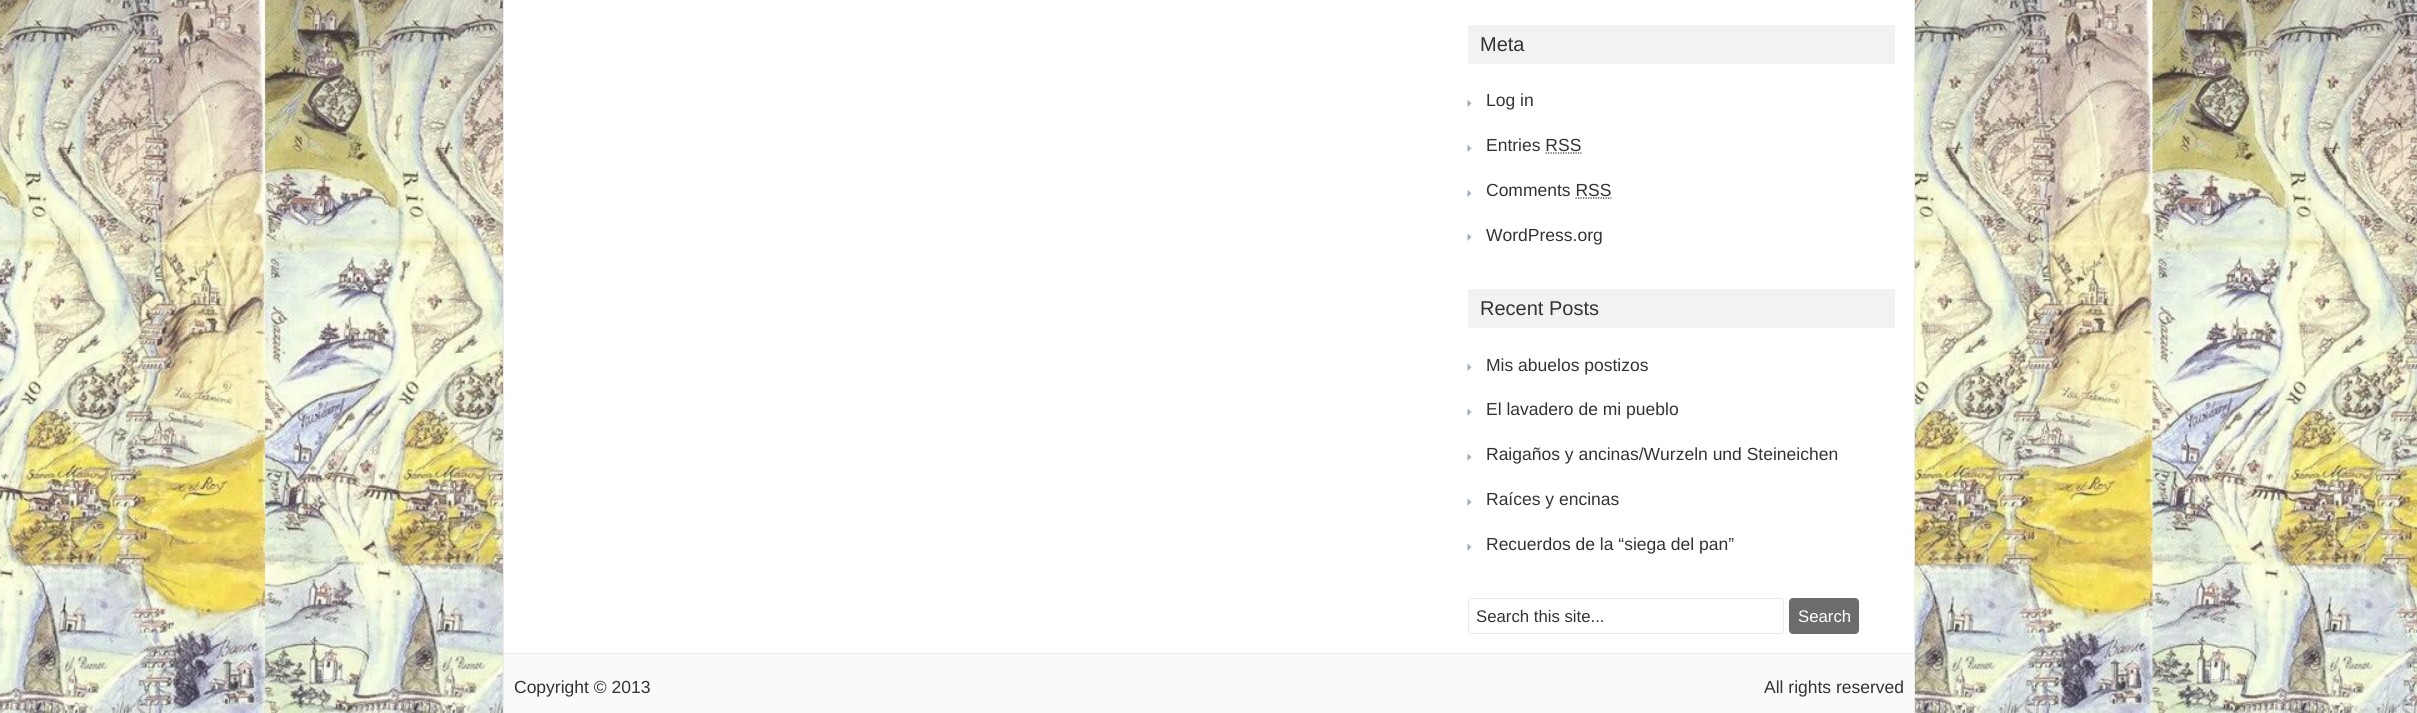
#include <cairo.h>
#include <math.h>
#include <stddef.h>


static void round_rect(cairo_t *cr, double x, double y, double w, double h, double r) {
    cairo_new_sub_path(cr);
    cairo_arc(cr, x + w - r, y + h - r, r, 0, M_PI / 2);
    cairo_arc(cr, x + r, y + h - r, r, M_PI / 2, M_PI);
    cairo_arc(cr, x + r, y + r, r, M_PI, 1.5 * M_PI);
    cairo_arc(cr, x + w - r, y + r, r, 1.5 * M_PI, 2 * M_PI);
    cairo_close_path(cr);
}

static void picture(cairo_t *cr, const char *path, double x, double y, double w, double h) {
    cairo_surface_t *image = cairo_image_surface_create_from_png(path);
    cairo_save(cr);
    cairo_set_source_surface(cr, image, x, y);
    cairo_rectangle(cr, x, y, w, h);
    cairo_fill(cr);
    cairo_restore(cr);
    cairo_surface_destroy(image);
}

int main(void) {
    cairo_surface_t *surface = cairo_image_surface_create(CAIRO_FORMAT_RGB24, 2417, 713);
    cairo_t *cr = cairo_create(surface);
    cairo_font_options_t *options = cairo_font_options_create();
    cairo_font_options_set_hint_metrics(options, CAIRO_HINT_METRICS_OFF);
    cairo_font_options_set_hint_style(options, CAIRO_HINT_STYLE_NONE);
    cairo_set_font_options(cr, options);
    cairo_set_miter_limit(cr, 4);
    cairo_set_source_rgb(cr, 1, 1, 1);
    cairo_paint(cr);
    picture(cr, "img1.png", 0, 0, 2417, 713);
    cairo_set_source_rgb(cr, 1, 1, 1);
    cairo_rectangle(cr, 504, 0, 1410, 653);
    cairo_fill(cr);
    cairo_rectangle(cr, 503.5, -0.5, 1411, 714);
    cairo_set_source_rgb(cr, 0.918, 0.918, 0.918);
    cairo_set_line_width(cr, 1);
    cairo_stroke(cr);
    cairo_set_source_rgb(cr, 0.949, 0.949, 0.949);
    cairo_rectangle(cr, 1468, 25, 427, 39);
    cairo_fill(cr);
    cairo_select_font_face(cr, "Liberation Sans", CAIRO_FONT_SLANT_NORMAL, CAIRO_FONT_WEIGHT_NORMAL);
    cairo_set_font_size(cr, 20);
    cairo_set_source_rgb(cr, 0.2, 0.2, 0.2);
    cairo_move_to(cr, 1480, 51);
    cairo_show_text(cr, "Meta");
    picture(cr, "img2.png", 1467, 100, 5, 7);
    cairo_set_font_size(cr, 17.5);
    cairo_move_to(cr, 1486, 106);
    cairo_show_text(cr, "Log in");
    picture(cr, "img2.png", 1467, 145, 5, 7);
    cairo_move_to(cr, 1486, 151);
    cairo_show_text(cr, "Entries RSS");
    cairo_new_path(cr);
    cairo_move_to(cr, 1545.5, 153);
    cairo_line_to(cr, 1581.5, 153);
    cairo_set_line_width(cr, 1.2);
    cairo_set_dash(cr, (double[]){1.25, 1.25}, 2, 0);
    cairo_stroke(cr);
    picture(cr, "img2.png", 1467, 190, 5, 7);
    cairo_move_to(cr, 1486, 196);
    cairo_show_text(cr, "Comments RSS");
    cairo_new_path(cr);
    cairo_move_to(cr, 1575.5, 198);
    cairo_line_to(cr, 1611.5, 198);
    cairo_stroke(cr);
    picture(cr, "img3.png", 1467, 233, 5, 8);
    cairo_move_to(cr, 1486, 241);
    cairo_show_text(cr, "WordPress.org");
    cairo_set_source_rgb(cr, 0.949, 0.949, 0.949);
    cairo_rectangle(cr, 1468, 289, 427, 39);
    cairo_fill(cr);
    cairo_set_font_size(cr, 20);
    cairo_set_source_rgb(cr, 0.2, 0.2, 0.2);
    cairo_move_to(cr, 1480, 315);
    cairo_show_text(cr, "Recent Posts");
    picture(cr, "img3.png", 1467, 363, 5, 8);
    cairo_set_font_size(cr, 17.5);
    cairo_move_to(cr, 1486, 371);
    cairo_show_text(cr, "Mis abuelos postizos");
    picture(cr, "img3.png", 1467, 408, 5, 8);
    cairo_move_to(cr, 1486, 415);
    cairo_show_text(cr, "El lavadero de mi pueblo");
    picture(cr, "img3.png", 1467, 453, 5, 8);
    cairo_move_to(cr, 1486, 460);
    cairo_show_text(cr, "Raigaños y ancinas/Wurzeln und Steineichen");
    picture(cr, "img3.png", 1467, 498, 5, 8);
    cairo_move_to(cr, 1486, 505);
    cairo_show_text(cr, "Raíces y encinas");
    picture(cr, "img3.png", 1467, 543, 5, 8);
    cairo_move_to(cr, 1486, 550);
    cairo_show_text(cr, "Recuerdos de la “siega del pan”");
    round_rect(cr, 1468.5, 598.5, 315, 35, 3.5);
    cairo_set_source_rgb(cr, 0.918, 0.918, 0.918);
    cairo_set_line_width(cr, 1);
    cairo_set_dash(cr, NULL, 0, 0);
    cairo_stroke(cr);
    cairo_set_font_size(cr, 16.75);
    cairo_set_source_rgb(cr, 0.2, 0.2, 0.2);
    cairo_move_to(cr, 1476, 622);
    cairo_show_text(cr, "Search this site...");
    cairo_set_source_rgb(cr, 0.424, 0.424, 0.424);
    round_rect(cr, 1789.5, 598.5, 69, 35, 3.5);
    cairo_fill_preserve(cr);
    cairo_stroke(cr);
    cairo_set_source_rgb(cr, 1, 1, 1);
    cairo_move_to(cr, 1798, 622);
    cairo_show_text(cr, "Search");
    cairo_set_source_rgb(cr, 0.98, 0.98, 0.98);
    cairo_rectangle(cr, 504, 654, 1410, 59);
    cairo_fill(cr);
    cairo_set_source_rgb(cr, 0.918, 0.918, 0.918);
    cairo_rectangle(cr, 504, 653, 1410, 1);
    cairo_fill(cr);
    cairo_set_font_size(cr, 17.5);
    cairo_set_source_rgb(cr, 0.2, 0.2, 0.2);
    cairo_move_to(cr, 514, 693);
    cairo_show_text(cr, "Copyright © 2013");
    cairo_move_to(cr, 1764, 693);
    cairo_show_text(cr, "All rights reserved");
    cairo_surface_write_to_png(surface, "page.png");
    cairo_font_options_destroy(options);
    cairo_destroy(cr);
    cairo_surface_destroy(surface);
    return 0;
}
